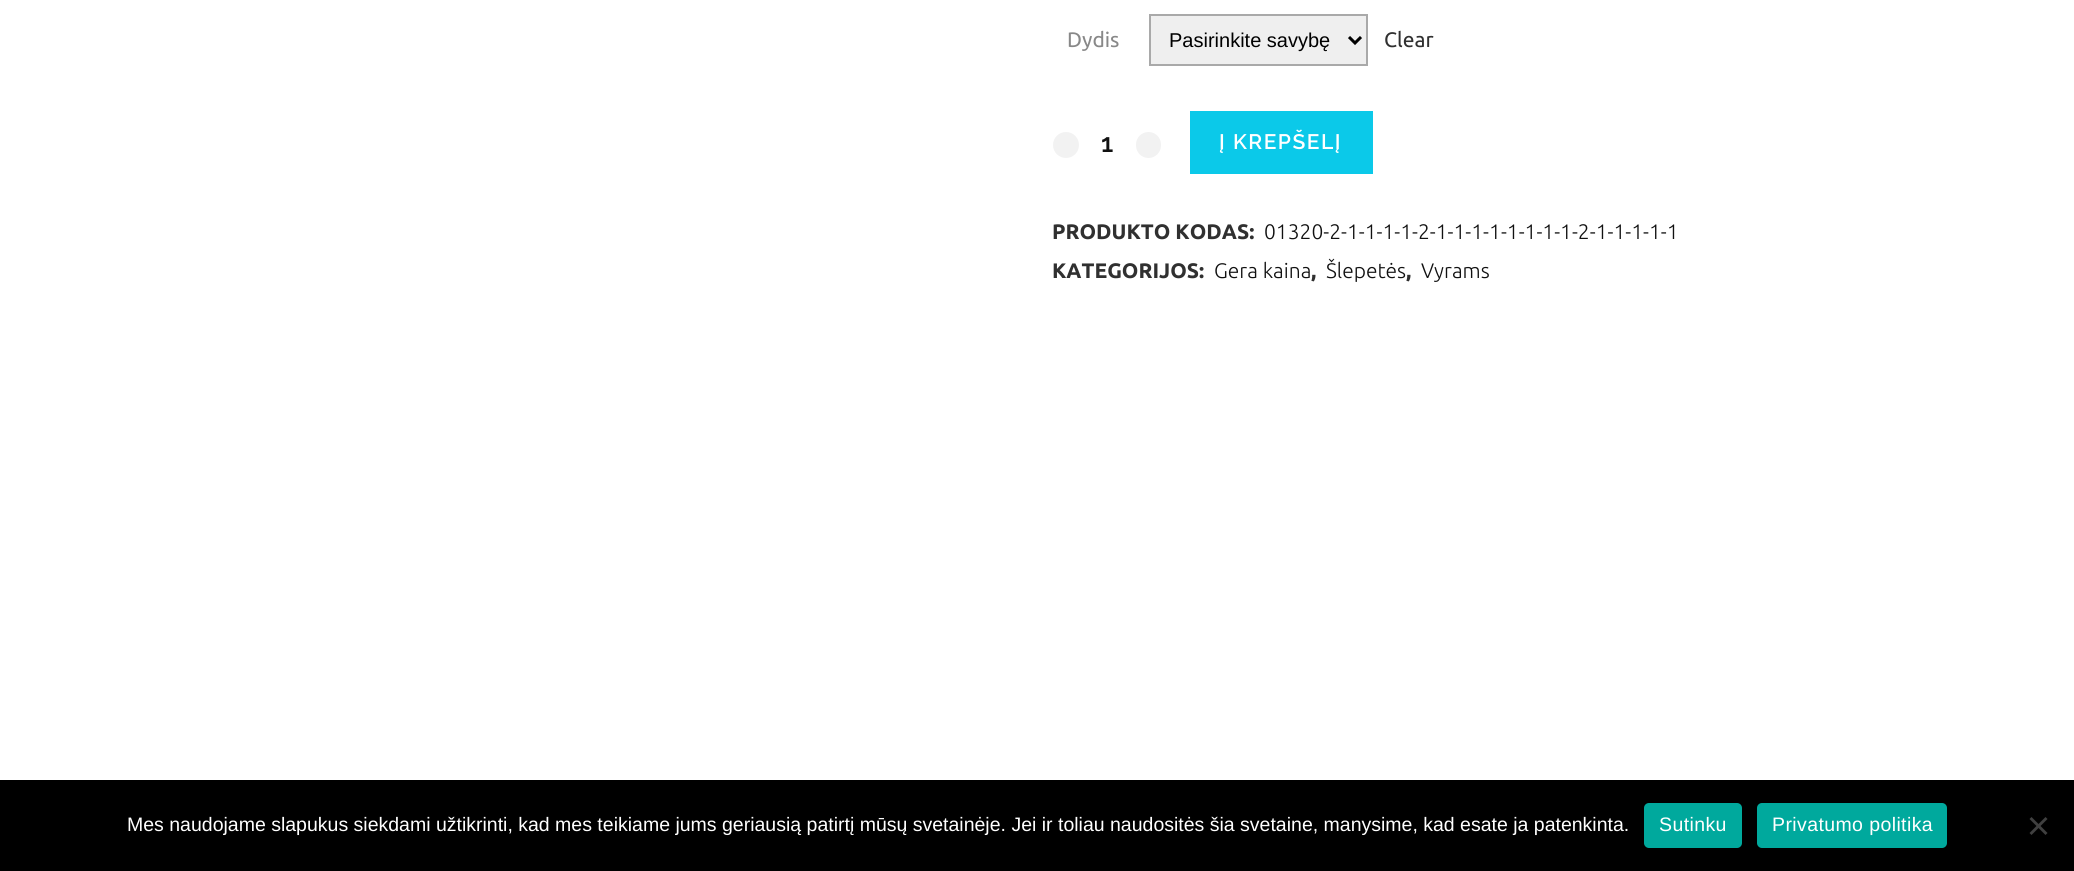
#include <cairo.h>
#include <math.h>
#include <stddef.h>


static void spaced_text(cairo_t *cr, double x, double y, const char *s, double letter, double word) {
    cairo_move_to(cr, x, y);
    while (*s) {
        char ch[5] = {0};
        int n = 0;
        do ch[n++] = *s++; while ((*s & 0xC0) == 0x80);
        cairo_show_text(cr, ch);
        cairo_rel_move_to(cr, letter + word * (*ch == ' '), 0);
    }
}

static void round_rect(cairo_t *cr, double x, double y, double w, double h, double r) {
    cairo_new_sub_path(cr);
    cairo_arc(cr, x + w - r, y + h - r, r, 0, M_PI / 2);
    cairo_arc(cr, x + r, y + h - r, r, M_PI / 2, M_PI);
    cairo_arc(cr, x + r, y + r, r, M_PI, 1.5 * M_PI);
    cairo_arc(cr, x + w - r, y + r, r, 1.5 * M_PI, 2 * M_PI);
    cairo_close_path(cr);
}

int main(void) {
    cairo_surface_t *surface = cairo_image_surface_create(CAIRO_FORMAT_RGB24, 2074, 871);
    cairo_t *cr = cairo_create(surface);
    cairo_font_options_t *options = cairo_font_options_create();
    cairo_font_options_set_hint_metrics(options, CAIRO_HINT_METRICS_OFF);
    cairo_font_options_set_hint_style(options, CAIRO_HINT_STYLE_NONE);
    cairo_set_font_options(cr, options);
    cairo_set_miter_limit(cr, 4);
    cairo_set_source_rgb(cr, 1, 1, 1);
    cairo_paint(cr);
    cairo_select_font_face(cr, "Ubuntu", CAIRO_FONT_SLANT_NORMAL, CAIRO_FONT_WEIGHT_NORMAL);
    cairo_set_font_size(cr, 21);
    cairo_set_source_rgb(cr, 0.533, 0.533, 0.533);
    cairo_move_to(cr, 1067, 47);
    cairo_show_text(cr, "Dydis");
    cairo_set_source_rgb(cr, 0.937, 0.937, 0.937);
    cairo_rectangle(cr, 1150, 15, 217, 50);
    cairo_fill_preserve(cr);
    cairo_set_source_rgb(cr, 0.663, 0.663, 0.663);
    cairo_stroke(cr);
    cairo_new_path(cr);
    cairo_move_to(cr, 1349, 37);
    cairo_line_to(cr, 1355, 43);
    cairo_line_to(cr, 1361, 37);
    cairo_set_source_rgb(cr, 0, 0, 0);
    cairo_set_line_width(cr, 3);
    cairo_stroke(cr);
    cairo_select_font_face(cr, "Liberation Sans", CAIRO_FONT_SLANT_NORMAL, CAIRO_FONT_WEIGHT_NORMAL);
    cairo_set_font_size(cr, 20);
    cairo_move_to(cr, 1169, 47);
    cairo_show_text(cr, "Pasirinkite savybę");
    cairo_select_font_face(cr, "Ubuntu", CAIRO_FONT_SLANT_NORMAL, CAIRO_FONT_WEIGHT_NORMAL);
    cairo_set_font_size(cr, 21);
    cairo_set_source_rgb(cr, 0.188, 0.188, 0.188);
    cairo_move_to(cr, 1384, 47);
    cairo_show_text(cr, "Clear");
    cairo_set_source_rgb(cr, 0.949, 0.949, 0.949);
    cairo_new_path(cr);
    cairo_arc(cr, 1066, 145, 13, 0, 2 * M_PI);
    cairo_fill(cr);
    cairo_select_font_face(cr, "Raleway SemiBold", CAIRO_FONT_SLANT_NORMAL, CAIRO_FONT_WEIGHT_NORMAL);
    cairo_set_font_size(cr, 26);
    cairo_set_source_rgb(cr, 0.067, 0.067, 0.067);
    cairo_move_to(cr, 1101, 152);
    cairo_show_text(cr, "1");
    cairo_set_source_rgb(cr, 0.949, 0.949, 0.949);
    round_rect(cr, 1136, 132, 25, 26, 12.5);
    cairo_fill(cr);
    cairo_set_source_rgb(cr, 0.043, 0.788, 0.914);
    cairo_rectangle(cr, 1190, 111, 183, 63);
    cairo_fill(cr);
    cairo_set_font_size(cr, 21);
    cairo_set_source_rgb(cr, 1, 1, 1);
    spaced_text(cr, 1219, 149, "Į KREPŠELĮ", 1.5, 0);
    cairo_select_font_face(cr, "Ubuntu", CAIRO_FONT_SLANT_NORMAL, CAIRO_FONT_WEIGHT_BOLD);
    cairo_set_source_rgb(cr, 0.188, 0.188, 0.188);
    cairo_move_to(cr, 1052, 239);
    cairo_show_text(cr, "PRODUKTO KODAS:");
    cairo_select_font_face(cr, "Ubuntu Light", CAIRO_FONT_SLANT_NORMAL, CAIRO_FONT_WEIGHT_NORMAL);
    cairo_set_source_rgb(cr, 0.067, 0.067, 0.067);
    cairo_move_to(cr, 1264, 239);
    cairo_show_text(cr, "01320-2-1-1-1-1-2-1-1-1-1-1-1-1-1-2-1-1-1-1-1");
    cairo_select_font_face(cr, "Ubuntu", CAIRO_FONT_SLANT_NORMAL, CAIRO_FONT_WEIGHT_BOLD);
    cairo_set_source_rgb(cr, 0.188, 0.188, 0.188);
    cairo_move_to(cr, 1052, 278);
    cairo_show_text(cr, "KATEGORIJOS:");
    cairo_select_font_face(cr, "Ubuntu Light", CAIRO_FONT_SLANT_NORMAL, CAIRO_FONT_WEIGHT_NORMAL);
    cairo_set_source_rgb(cr, 0.067, 0.067, 0.067);
    cairo_move_to(cr, 1214, 278);
    cairo_show_text(cr, "Gera kaina");
    cairo_select_font_face(cr, "Ubuntu", CAIRO_FONT_SLANT_NORMAL, CAIRO_FONT_WEIGHT_BOLD);
    cairo_set_source_rgb(cr, 0.188, 0.188, 0.188);
    cairo_move_to(cr, 1311, 278);
    cairo_show_text(cr, ",");
    cairo_select_font_face(cr, "Ubuntu Light", CAIRO_FONT_SLANT_NORMAL, CAIRO_FONT_WEIGHT_NORMAL);
    cairo_set_source_rgb(cr, 0.067, 0.067, 0.067);
    cairo_move_to(cr, 1326, 278);
    cairo_show_text(cr, "Šlepetės");
    cairo_select_font_face(cr, "Ubuntu", CAIRO_FONT_SLANT_NORMAL, CAIRO_FONT_WEIGHT_BOLD);
    cairo_set_source_rgb(cr, 0.188, 0.188, 0.188);
    cairo_move_to(cr, 1406, 278);
    cairo_show_text(cr, ",");
    cairo_select_font_face(cr, "Ubuntu Light", CAIRO_FONT_SLANT_NORMAL, CAIRO_FONT_WEIGHT_NORMAL);
    cairo_set_source_rgb(cr, 0.067, 0.067, 0.067);
    cairo_move_to(cr, 1421, 278);
    cairo_show_text(cr, "Vyrams");
    cairo_set_source_rgb(cr, 0, 0, 0);
    cairo_rectangle(cr, 0, 780, 2074, 91);
    cairo_fill(cr);
    cairo_select_font_face(cr, "Liberation Sans", CAIRO_FONT_SLANT_NORMAL, CAIRO_FONT_WEIGHT_NORMAL);
    cairo_set_font_size(cr, 19.5);
    cairo_set_source_rgb(cr, 1, 1, 1);
    cairo_move_to(cr, 127, 831);
    cairo_show_text(cr, "Mes naudojame slapukus siekdami užtikrinti, kad mes teikiame jums geriausią patirtį mūsų svetainėje. Jei ir toliau naudositės šia svetaine, manysime, kad esate ja patenkinta.");
    cairo_set_source_rgb(cr, 0, 0.663, 0.616);
    round_rect(cr, 1644, 803, 98, 45, 5);
    cairo_fill(cr);
    cairo_set_source_rgb(cr, 1, 1, 1);
    spaced_text(cr, 1659, 831, "Sutinku", 0.4, 0);
    cairo_set_source_rgb(cr, 0, 0.663, 0.616);
    round_rect(cr, 1757, 803, 190, 45, 5);
    cairo_fill(cr);
    cairo_set_source_rgb(cr, 1, 1, 1);
    spaced_text(cr, 1772, 831, "Privatumo politika", 0.4, 0);
    cairo_set_source_rgb(cr, 0.251, 0.251, 0.251);
    cairo_new_path(cr);
    cairo_move_to(cr, 2045.5, 817);
    cairo_line_to(cr, 2047.5, 819);
    cairo_line_to(cr, 2031.5, 835);
    cairo_line_to(cr, 2029.5, 833);
    cairo_close_path(cr);
    cairo_fill(cr);
    cairo_new_path(cr);
    cairo_move_to(cr, 2029.5, 819);
    cairo_line_to(cr, 2031.5, 817);
    cairo_line_to(cr, 2047.5, 833);
    cairo_line_to(cr, 2045.5, 835);
    cairo_close_path(cr);
    cairo_fill(cr);
    cairo_surface_write_to_png(surface, "page.png");
    cairo_font_options_destroy(options);
    cairo_destroy(cr);
    cairo_surface_destroy(surface);
    return 0;
}
